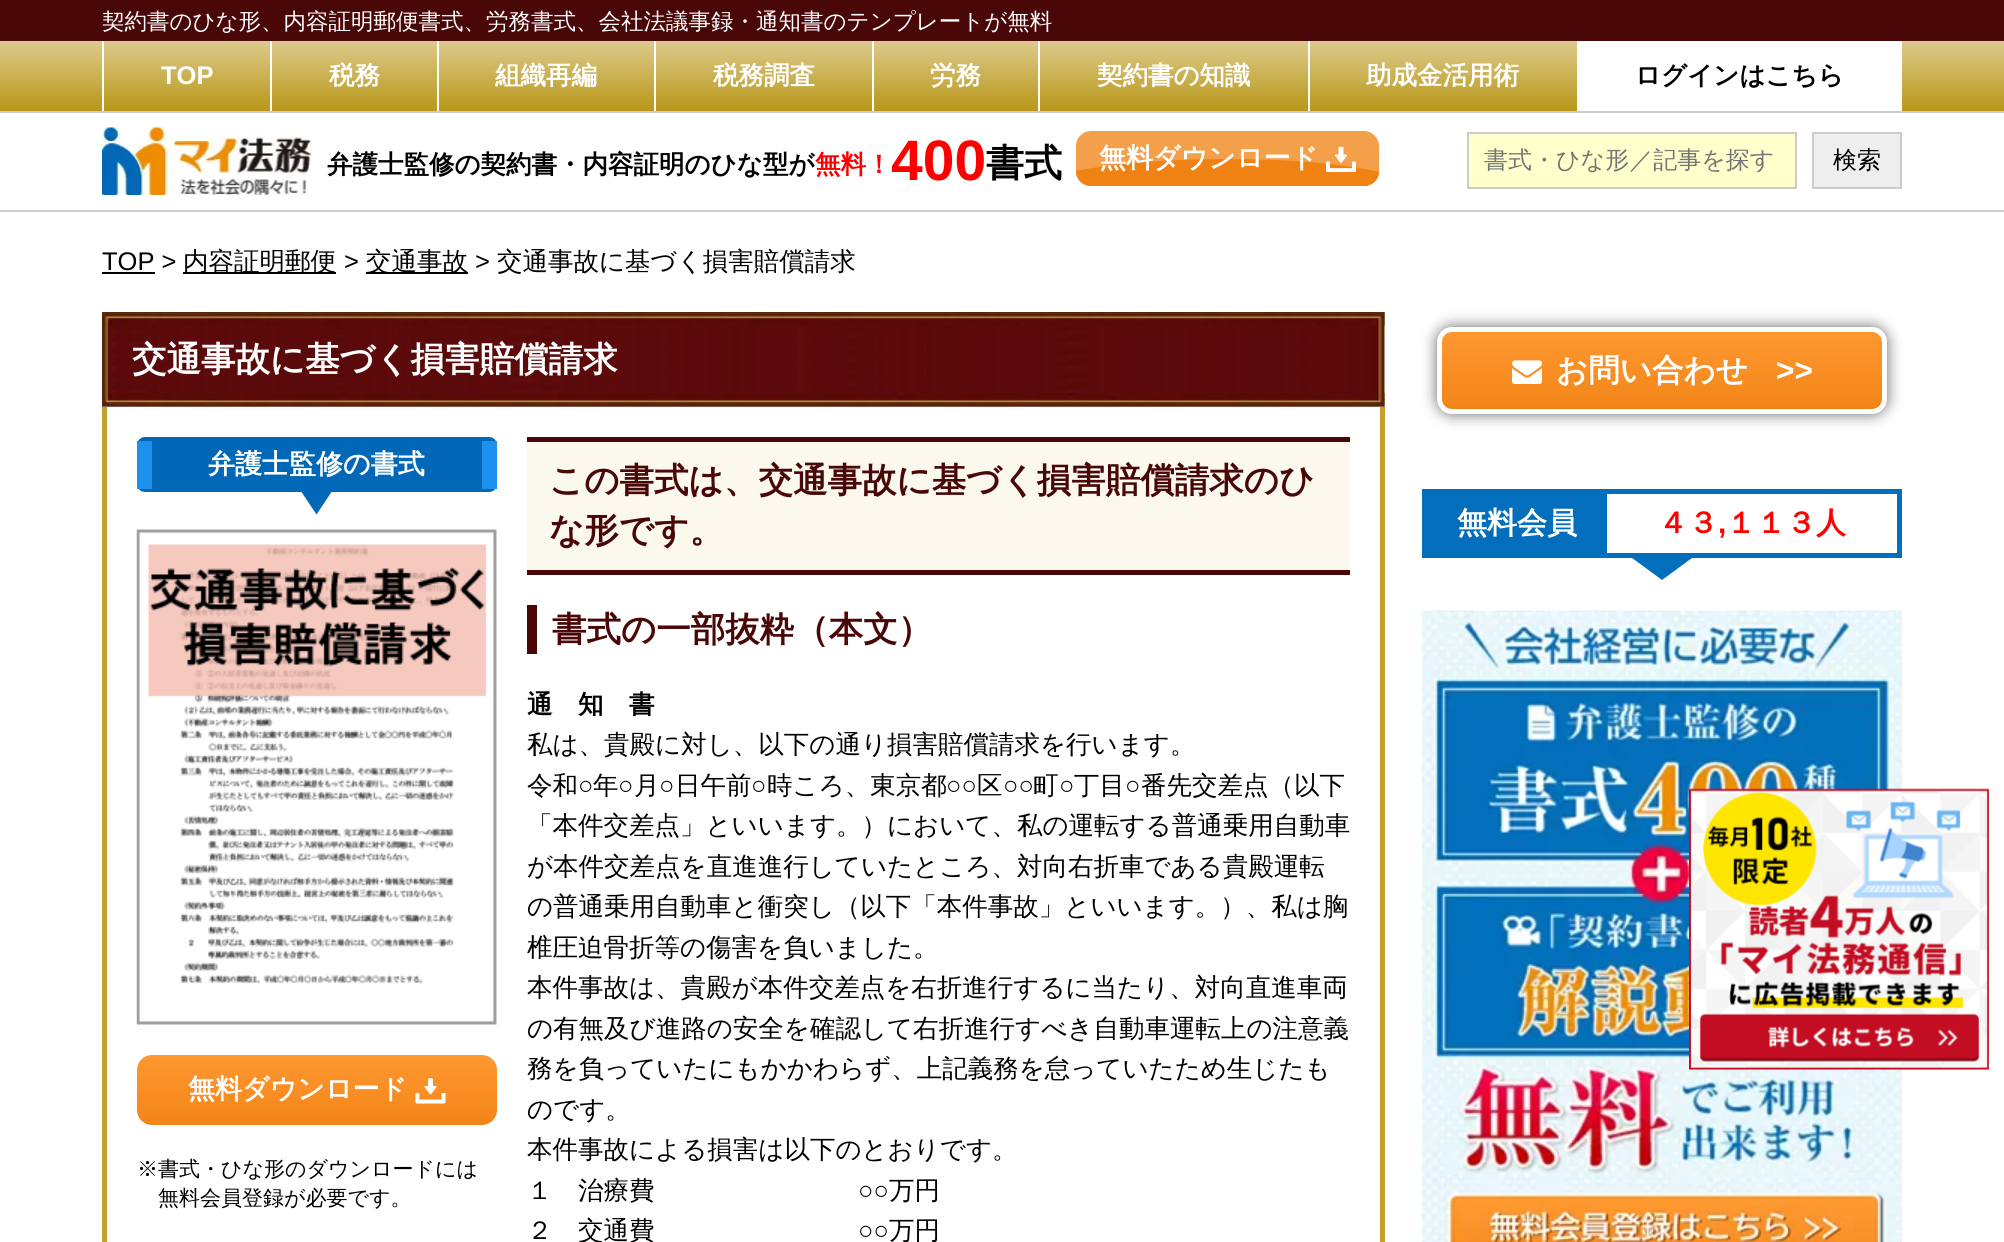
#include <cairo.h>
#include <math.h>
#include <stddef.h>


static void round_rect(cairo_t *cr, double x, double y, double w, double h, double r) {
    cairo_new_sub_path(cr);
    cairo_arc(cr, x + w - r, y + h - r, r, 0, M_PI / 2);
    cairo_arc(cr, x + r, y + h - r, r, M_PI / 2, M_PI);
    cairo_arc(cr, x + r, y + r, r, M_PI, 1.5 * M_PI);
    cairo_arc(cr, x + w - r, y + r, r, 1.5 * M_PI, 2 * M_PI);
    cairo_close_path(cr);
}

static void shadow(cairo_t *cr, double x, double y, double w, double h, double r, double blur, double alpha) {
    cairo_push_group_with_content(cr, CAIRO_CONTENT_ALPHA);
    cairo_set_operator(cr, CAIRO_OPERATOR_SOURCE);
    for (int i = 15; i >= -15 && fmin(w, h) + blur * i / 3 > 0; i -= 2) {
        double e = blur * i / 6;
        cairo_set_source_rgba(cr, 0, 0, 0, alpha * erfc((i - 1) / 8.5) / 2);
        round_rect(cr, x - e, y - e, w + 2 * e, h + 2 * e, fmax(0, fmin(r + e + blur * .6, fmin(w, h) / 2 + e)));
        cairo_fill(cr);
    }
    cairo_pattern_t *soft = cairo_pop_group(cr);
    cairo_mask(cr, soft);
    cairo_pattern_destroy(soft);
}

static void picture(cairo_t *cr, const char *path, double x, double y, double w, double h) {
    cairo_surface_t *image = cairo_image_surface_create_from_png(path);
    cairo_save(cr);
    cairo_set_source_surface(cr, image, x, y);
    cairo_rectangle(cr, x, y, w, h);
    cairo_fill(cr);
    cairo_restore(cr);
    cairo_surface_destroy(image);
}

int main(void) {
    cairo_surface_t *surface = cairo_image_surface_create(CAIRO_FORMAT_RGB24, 2004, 1242);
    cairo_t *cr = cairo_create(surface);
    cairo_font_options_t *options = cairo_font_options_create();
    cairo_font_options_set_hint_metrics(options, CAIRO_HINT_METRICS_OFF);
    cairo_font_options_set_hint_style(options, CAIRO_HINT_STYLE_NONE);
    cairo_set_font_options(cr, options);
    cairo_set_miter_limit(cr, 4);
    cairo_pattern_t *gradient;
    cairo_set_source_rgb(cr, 1, 1, 1);
    cairo_paint(cr);
    cairo_set_source_rgb(cr, 0.29, 0.031, 0.031);
    cairo_rectangle(cr, 0, 0, 2004, 41);
    cairo_fill(cr);
    cairo_select_font_face(cr, "WenQuanYi Zen Hei Medium", CAIRO_FONT_SLANT_NORMAL, CAIRO_FONT_WEIGHT_NORMAL);
    cairo_set_font_size(cr, 22.5);
    cairo_set_source_rgb(cr, 1, 1, 1);
    cairo_move_to(cr, 102, 29);
    cairo_show_text(cr, "契約書のひな形、内容証明郵便書式、労務書式、会社法議事録・通知書のテンプレートが無料");
    gradient = cairo_pattern_create_linear(1002, 40, 1002, 111);
    cairo_pattern_add_color_stop_rgba(gradient, 0, 0.867, 0.796, 0.553, 1);
    cairo_pattern_add_color_stop_rgba(gradient, 1, 0.725, 0.592, 0.098, 1);
    cairo_set_source(cr, gradient);
    cairo_pattern_destroy(gradient);
    cairo_rectangle(cr, 0, 41, 2004, 70);
    cairo_fill(cr);
    cairo_set_source_rgb(cr, 1, 1, 1);
    cairo_rectangle(cr, 270, 41, 2, 70);
    cairo_fill(cr);
    cairo_rectangle(cr, 102, 41, 2, 70);
    cairo_fill(cr);
    cairo_select_font_face(cr, "Liberation Sans", CAIRO_FONT_SLANT_NORMAL, CAIRO_FONT_WEIGHT_BOLD);
    cairo_set_font_size(cr, 25.5);
    cairo_move_to(cr, 161, 84);
    cairo_show_text(cr, "TOP");
    cairo_rectangle(cr, 437, 41, 2, 70);
    cairo_fill(cr);
    cairo_select_font_face(cr, "WenQuanYi Zen Hei", CAIRO_FONT_SLANT_NORMAL, CAIRO_FONT_WEIGHT_BOLD);
    cairo_move_to(cr, 329, 84);
    cairo_show_text(cr, "税務");
    cairo_rectangle(cr, 654, 41, 2, 70);
    cairo_fill(cr);
    cairo_move_to(cr, 495, 84);
    cairo_show_text(cr, "組織再編");
    cairo_rectangle(cr, 872, 41, 2, 70);
    cairo_fill(cr);
    cairo_move_to(cr, 713, 84);
    cairo_show_text(cr, "税務調査");
    cairo_rectangle(cr, 1038, 41, 2, 70);
    cairo_fill(cr);
    cairo_move_to(cr, 930, 84);
    cairo_show_text(cr, "労務");
    cairo_rectangle(cr, 1308, 41, 2, 70);
    cairo_fill(cr);
    cairo_move_to(cr, 1097, 84);
    cairo_show_text(cr, "契約書の知識");
    cairo_rectangle(cr, 1577, 41, 1, 70);
    cairo_fill(cr);
    cairo_move_to(cr, 1366, 84);
    cairo_show_text(cr, "助成金活用術");
    cairo_rectangle(cr, 1578, 41, 324, 70);
    cairo_fill(cr);
    cairo_set_source_rgb(cr, 0, 0, 0);
    cairo_move_to(cr, 1635, 84);
    cairo_show_text(cr, "ログインはこちら");
    cairo_set_source_rgb(cr, 0.8, 0.8, 0.8);
    cairo_rectangle(cr, 0, 111, 2004, 2);
    cairo_fill(cr);
    cairo_rectangle(cr, 0, 210, 2004, 2);
    cairo_fill(cr);
    picture(cr, "img1.png", 102, 127, 210, 68);
    cairo_set_source_rgb(cr, 0, 0, 0);
    cairo_move_to(cr, 327, 173);
    cairo_show_text(cr, "弁護士監修の契約書・内容証明のひな型が");
    cairo_set_source_rgb(cr, 1, 0, 0);
    cairo_move_to(cr, 815, 173);
    cairo_show_text(cr, "無料！");
    cairo_select_font_face(cr, "Liberation Sans", CAIRO_FONT_SLANT_NORMAL, CAIRO_FONT_WEIGHT_BOLD);
    cairo_set_font_size(cr, 57);
    cairo_move_to(cr, 891, 180);
    cairo_show_text(cr, "400");
    cairo_select_font_face(cr, "WenQuanYi Zen Hei", CAIRO_FONT_SLANT_NORMAL, CAIRO_FONT_WEIGHT_BOLD);
    cairo_set_font_size(cr, 38);
    cairo_set_source_rgb(cr, 0, 0, 0);
    cairo_move_to(cr, 986, 176);
    cairo_show_text(cr, "書式");
    cairo_set_source_rgb(cr, 0.957, 0.624, 0.29);
    round_rect(cr, 1076, 131, 303, 55, 15);
    cairo_fill(cr);
    cairo_set_source_rgb(cr, 0.941, 0.51, 0.078);
    cairo_new_path(cr);
    cairo_move_to(cr, 1227, 159);
    cairo_curve_to(cr, 1291, 159, 1347, 164, 1379, 172);
    cairo_curve_to(cr, 1379, 180, 1372, 186, 1364, 186);
    cairo_line_to(cr, 1091, 186);
    cairo_curve_to(cr, 1083, 186, 1076, 180, 1076, 171);
    cairo_curve_to(cr, 1109, 164, 1164, 159, 1227, 159);
    cairo_close_path(cr);
    cairo_fill(cr);
    cairo_set_font_size(cr, 27);
    cairo_set_source_rgb(cr, 1, 1, 1);
    cairo_move_to(cr, 1099, 167);
    cairo_show_text(cr, "無料ダウンロード");
    picture(cr, "img2.png", 1326, 146, 30, 27);
    cairo_set_source_rgb(cr, 1, 1, 0.8);
    cairo_rectangle(cr, 1468, 133, 328, 55);
    cairo_fill_preserve(cr);
    cairo_set_source_rgb(cr, 0.8, 0.8, 0.8);
    cairo_stroke(cr);
    cairo_select_font_face(cr, "WenQuanYi Zen Hei Medium", CAIRO_FONT_SLANT_NORMAL, CAIRO_FONT_WEIGHT_NORMAL);
    cairo_set_font_size(cr, 24);
    cairo_set_source_rgb(cr, 0.459, 0.459, 0.459);
    cairo_move_to(cr, 1484, 168);
    cairo_show_text(cr, "書式・ひな形／記事を探す");
    cairo_set_source_rgb(cr, 0.933, 0.933, 0.933);
    cairo_rectangle(cr, 1813, 133, 88, 55);
    cairo_fill_preserve(cr);
    cairo_set_source_rgb(cr, 0.8, 0.8, 0.8);
    cairo_stroke(cr);
    cairo_set_source_rgb(cr, 0, 0, 0);
    cairo_move_to(cr, 1833, 168);
    cairo_show_text(cr, "検索");
    cairo_select_font_face(cr, "Liberation Sans", CAIRO_FONT_SLANT_NORMAL, CAIRO_FONT_WEIGHT_NORMAL);
    cairo_set_font_size(cr, 25.5);
    cairo_move_to(cr, 102, 270);
    cairo_show_text(cr, "TOP >");
    cairo_rectangle(cr, 102, 272, 53, 2);
    cairo_fill(cr);
    cairo_rectangle(cr, 183, 272, 153, 2);
    cairo_fill(cr);
    cairo_select_font_face(cr, "WenQuanYi Zen Hei Medium", CAIRO_FONT_SLANT_NORMAL, CAIRO_FONT_WEIGHT_NORMAL);
    cairo_move_to(cr, 183, 270);
    cairo_show_text(cr, "内容証明郵便");
    cairo_select_font_face(cr, "Liberation Sans", CAIRO_FONT_SLANT_NORMAL, CAIRO_FONT_WEIGHT_NORMAL);
    cairo_move_to(cr, 344, 270);
    cairo_show_text(cr, ">");
    cairo_rectangle(cr, 366, 272, 102, 2);
    cairo_fill(cr);
    cairo_select_font_face(cr, "WenQuanYi Zen Hei Medium", CAIRO_FONT_SLANT_NORMAL, CAIRO_FONT_WEIGHT_NORMAL);
    cairo_move_to(cr, 366, 270);
    cairo_show_text(cr, "交通事故");
    cairo_select_font_face(cr, "Liberation Sans", CAIRO_FONT_SLANT_NORMAL, CAIRO_FONT_WEIGHT_NORMAL);
    cairo_move_to(cr, 475, 270);
    cairo_show_text(cr, ">");
    cairo_select_font_face(cr, "WenQuanYi Zen Hei Medium", CAIRO_FONT_SLANT_NORMAL, CAIRO_FONT_WEIGHT_NORMAL);
    cairo_move_to(cr, 497, 270);
    cairo_show_text(cr, "交通事故に基づく損害賠償請求");
    picture(cr, "img3.png", 102, 312, 1283, 95);
    cairo_select_font_face(cr, "WenQuanYi Zen Hei", CAIRO_FONT_SLANT_NORMAL, CAIRO_FONT_WEIGHT_BOLD);
    cairo_set_font_size(cr, 34.5);
    cairo_set_source_rgb(cr, 1, 1, 1);
    cairo_move_to(cr, 132, 371);
    cairo_show_text(cr, "交通事故に基づく損害賠償請求");
    cairo_set_source_rgb(cr, 0.757, 0.631, 0.188);
    cairo_rectangle(cr, 1380, 407, 5, 835);
    cairo_fill(cr);
    cairo_rectangle(cr, 102, 407, 5, 835);
    cairo_fill(cr);
    cairo_set_source_rgb(cr, 0.004, 0.408, 0.718);
    round_rect(cr, 137, 437, 360, 55, 8);
    cairo_fill(cr);
    cairo_set_source_rgb(cr, 0.11, 0.569, 0.929);
    cairo_rectangle(cr, 482, 441, 15, 48);
    cairo_fill(cr);
    cairo_rectangle(cr, 137, 441, 15, 48);
    cairo_fill(cr);
    cairo_set_font_size(cr, 27);
    cairo_set_source_rgb(cr, 1, 1, 1);
    cairo_move_to(cr, 208, 473);
    cairo_show_text(cr, "弁護士監修の書式");
    cairo_set_source_rgb(cr, 0.004, 0.408, 0.718);
    cairo_new_path(cr);
    cairo_move_to(cr, 301.5, 492);
    cairo_line_to(cr, 331.5, 492);
    cairo_line_to(cr, 316.5, 514.5);
    cairo_close_path(cr);
    cairo_fill(cr);
    picture(cr, "img4.png", 136, 529, 361, 496);
    gradient = cairo_pattern_create_linear(317, 1055, 317, 1125);
    cairo_pattern_add_color_stop_rgba(gradient, 0, 1, 0.596, 0.192, 1);
    cairo_pattern_add_color_stop_rgba(gradient, 1, 0.949, 0.522, 0.094, 1);
    cairo_set_source(cr, gradient);
    cairo_pattern_destroy(gradient);
    round_rect(cr, 137, 1055, 360, 70, 15);
    cairo_fill(cr);
    cairo_set_source_rgb(cr, 1, 1, 1);
    cairo_move_to(cr, 188, 1098);
    cairo_show_text(cr, "無料ダウンロード");
    picture(cr, "img5.png", 415, 1078, 31, 26);
    cairo_select_font_face(cr, "WenQuanYi Zen Hei Medium", CAIRO_FONT_SLANT_NORMAL, CAIRO_FONT_WEIGHT_NORMAL);
    cairo_set_font_size(cr, 21);
    cairo_set_source_rgb(cr, 0, 0, 0);
    cairo_move_to(cr, 137, 1176);
    cairo_show_text(cr, "※");
    cairo_move_to(cr, 158, 1176);
    cairo_show_text(cr, "書式・ひな形のダウンロードには");
    cairo_move_to(cr, 158, 1205);
    cairo_show_text(cr, "無料会員登録が必要です。");
    cairo_set_source_rgb(cr, 0.984, 0.969, 0.933);
    cairo_rectangle(cr, 527, 442, 823, 128);
    cairo_fill(cr);
    cairo_set_source_rgb(cr, 0.29, 0.031, 0.031);
    cairo_rectangle(cr, 527, 437, 823, 5);
    cairo_fill(cr);
    cairo_rectangle(cr, 527, 570, 823, 5);
    cairo_fill(cr);
    cairo_select_font_face(cr, "WenQuanYi Zen Hei", CAIRO_FONT_SLANT_NORMAL, CAIRO_FONT_WEIGHT_BOLD);
    cairo_set_font_size(cr, 34.5);
    cairo_move_to(cr, 549, 492);
    cairo_show_text(cr, "この書式は、交通事故に基づく損害賠償請求のひ");
    cairo_move_to(cr, 549, 542);
    cairo_show_text(cr, "な形です。");
    cairo_rectangle(cr, 527, 605, 10, 49);
    cairo_fill(cr);
    cairo_move_to(cr, 552, 641);
    cairo_show_text(cr, "書式の一部抜粋（本文）");
    cairo_set_font_size(cr, 25.5);
    cairo_set_source_rgb(cr, 0, 0, 0);
    cairo_move_to(cr, 527, 713);
    cairo_show_text(cr, "通　知　書");
    cairo_select_font_face(cr, "WenQuanYi Zen Hei Medium", CAIRO_FONT_SLANT_NORMAL, CAIRO_FONT_WEIGHT_NORMAL);
    cairo_move_to(cr, 527, 753);
    cairo_show_text(cr, "私は、貴殿に対し、以下の通り損害賠償請求を行います。");
    cairo_move_to(cr, 527, 794);
    cairo_show_text(cr, "令和");
    cairo_select_font_face(cr, "Liberation Sans", CAIRO_FONT_SLANT_NORMAL, CAIRO_FONT_WEIGHT_NORMAL);
    cairo_move_to(cr, 578, 794);
    cairo_show_text(cr, "○");
    cairo_select_font_face(cr, "WenQuanYi Zen Hei Medium", CAIRO_FONT_SLANT_NORMAL, CAIRO_FONT_WEIGHT_NORMAL);
    cairo_move_to(cr, 593, 794);
    cairo_show_text(cr, "年");
    cairo_select_font_face(cr, "Liberation Sans", CAIRO_FONT_SLANT_NORMAL, CAIRO_FONT_WEIGHT_NORMAL);
    cairo_move_to(cr, 618, 794);
    cairo_show_text(cr, "○");
    cairo_select_font_face(cr, "WenQuanYi Zen Hei Medium", CAIRO_FONT_SLANT_NORMAL, CAIRO_FONT_WEIGHT_NORMAL);
    cairo_move_to(cr, 634, 794);
    cairo_show_text(cr, "月");
    cairo_select_font_face(cr, "Liberation Sans", CAIRO_FONT_SLANT_NORMAL, CAIRO_FONT_WEIGHT_NORMAL);
    cairo_move_to(cr, 659, 794);
    cairo_show_text(cr, "○");
    cairo_select_font_face(cr, "WenQuanYi Zen Hei Medium", CAIRO_FONT_SLANT_NORMAL, CAIRO_FONT_WEIGHT_NORMAL);
    cairo_move_to(cr, 675, 794);
    cairo_show_text(cr, "日午前");
    cairo_select_font_face(cr, "Liberation Sans", CAIRO_FONT_SLANT_NORMAL, CAIRO_FONT_WEIGHT_NORMAL);
    cairo_move_to(cr, 751, 794);
    cairo_show_text(cr, "○");
    cairo_select_font_face(cr, "WenQuanYi Zen Hei Medium", CAIRO_FONT_SLANT_NORMAL, CAIRO_FONT_WEIGHT_NORMAL);
    cairo_move_to(cr, 767, 794);
    cairo_show_text(cr, "時ころ、東京都");
    cairo_select_font_face(cr, "Liberation Sans", CAIRO_FONT_SLANT_NORMAL, CAIRO_FONT_WEIGHT_NORMAL);
    cairo_move_to(cr, 946, 794);
    cairo_show_text(cr, "○○");
    cairo_select_font_face(cr, "WenQuanYi Zen Hei Medium", CAIRO_FONT_SLANT_NORMAL, CAIRO_FONT_WEIGHT_NORMAL);
    cairo_move_to(cr, 977, 794);
    cairo_show_text(cr, "区");
    cairo_select_font_face(cr, "Liberation Sans", CAIRO_FONT_SLANT_NORMAL, CAIRO_FONT_WEIGHT_NORMAL);
    cairo_move_to(cr, 1003, 794);
    cairo_show_text(cr, "○○");
    cairo_select_font_face(cr, "WenQuanYi Zen Hei Medium", CAIRO_FONT_SLANT_NORMAL, CAIRO_FONT_WEIGHT_NORMAL);
    cairo_move_to(cr, 1033, 794);
    cairo_show_text(cr, "町");
    cairo_select_font_face(cr, "Liberation Sans", CAIRO_FONT_SLANT_NORMAL, CAIRO_FONT_WEIGHT_NORMAL);
    cairo_move_to(cr, 1059, 794);
    cairo_show_text(cr, "○");
    cairo_select_font_face(cr, "WenQuanYi Zen Hei Medium", CAIRO_FONT_SLANT_NORMAL, CAIRO_FONT_WEIGHT_NORMAL);
    cairo_move_to(cr, 1074, 794);
    cairo_show_text(cr, "丁目");
    cairo_select_font_face(cr, "Liberation Sans", CAIRO_FONT_SLANT_NORMAL, CAIRO_FONT_WEIGHT_NORMAL);
    cairo_move_to(cr, 1125, 794);
    cairo_show_text(cr, "○");
    cairo_select_font_face(cr, "WenQuanYi Zen Hei Medium", CAIRO_FONT_SLANT_NORMAL, CAIRO_FONT_WEIGHT_NORMAL);
    cairo_move_to(cr, 1141, 794);
    cairo_show_text(cr, "番先交差点（以下");
    cairo_move_to(cr, 527, 834);
    cairo_show_text(cr, "「本件交差点」といいます。）において、私の運転する普通乗用自動車");
    cairo_move_to(cr, 527, 875);
    cairo_show_text(cr, "が本件交差点を直進進行していたところ、対向右折車である貴殿運転");
    cairo_move_to(cr, 527, 915);
    cairo_show_text(cr, "の普通乗用自動車と衝突し（以下「本件事故」といいます。）、私は胸");
    cairo_move_to(cr, 527, 956);
    cairo_show_text(cr, "椎圧迫骨折等の傷害を負いました。");
    cairo_move_to(cr, 527, 996);
    cairo_show_text(cr, "本件事故は、貴殿が本件交差点を右折進行するに当たり、対向直進車両");
    cairo_move_to(cr, 527, 1037);
    cairo_show_text(cr, "の有無及び進路の安全を確認して右折進行すべき自動車運転上の注意義");
    cairo_move_to(cr, 527, 1077);
    cairo_show_text(cr, "務を負っていたにもかかわらず、上記義務を怠っていたため生じたも");
    cairo_move_to(cr, 527, 1118);
    cairo_show_text(cr, "のです。");
    cairo_move_to(cr, 527, 1158);
    cairo_show_text(cr, "本件事故による損害は以下のとおりです。");
    cairo_move_to(cr, 527, 1199);
    cairo_show_text(cr, "１　治療費");
    cairo_select_font_face(cr, "Liberation Sans", CAIRO_FONT_SLANT_NORMAL, CAIRO_FONT_WEIGHT_NORMAL);
    cairo_move_to(cr, 858, 1199);
    cairo_show_text(cr, "○○");
    cairo_select_font_face(cr, "WenQuanYi Zen Hei Medium", CAIRO_FONT_SLANT_NORMAL, CAIRO_FONT_WEIGHT_NORMAL);
    cairo_move_to(cr, 889, 1199);
    cairo_show_text(cr, "万円");
    cairo_move_to(cr, 527, 1239);
    cairo_show_text(cr, "２　交通費");
    cairo_select_font_face(cr, "Liberation Sans", CAIRO_FONT_SLANT_NORMAL, CAIRO_FONT_WEIGHT_NORMAL);
    cairo_move_to(cr, 858, 1239);
    cairo_show_text(cr, "○○");
    cairo_select_font_face(cr, "WenQuanYi Zen Hei Medium", CAIRO_FONT_SLANT_NORMAL, CAIRO_FONT_WEIGHT_NORMAL);
    cairo_move_to(cr, 889, 1239);
    cairo_show_text(cr, "万円");
    cairo_set_source_rgb(cr, 0, 0, 0);
    shadow(cr, 1437, 327, 450, 87, 15, 7.5, 0.6);
    cairo_save(cr);
    round_rect(cr, 1437, 327, 450, 87, 15);
    cairo_clip(cr);
    gradient = cairo_pattern_create_linear(1662, 331, 1662, 410);
    cairo_pattern_add_color_stop_rgba(gradient, 0, 1, 0.596, 0.192, 1);
    cairo_pattern_add_color_stop_rgba(gradient, 1, 0.949, 0.522, 0.094, 1);
    cairo_set_source(cr, gradient);
    cairo_pattern_destroy(gradient);
    cairo_rectangle(cr, 1437, 332, 450, 78);
    cairo_fill(cr);
    cairo_restore(cr);
    round_rect(cr, 1439.5, 329.5, 445, 82, 12.5);
    cairo_set_source_rgb(cr, 1, 1, 1);
    cairo_set_line_width(cr, 5);
    cairo_stroke(cr);
    picture(cr, "img6.png", 1512, 360, 30, 24);
    cairo_select_font_face(cr, "WenQuanYi Zen Hei", CAIRO_FONT_SLANT_NORMAL, CAIRO_FONT_WEIGHT_BOLD);
    cairo_set_font_size(cr, 31.5);
    cairo_move_to(cr, 1556, 381);
    cairo_show_text(cr, "お問い合わせ");
    cairo_select_font_face(cr, "Liberation Sans", CAIRO_FONT_SLANT_NORMAL, CAIRO_FONT_WEIGHT_BOLD);
    cairo_move_to(cr, 1776, 381);
    cairo_show_text(cr, ">>");
    cairo_rectangle(cr, 1424.5, 491.5, 475, 64);
    cairo_set_source_rgb(cr, 0.012, 0.435, 0.737);
    cairo_stroke(cr);
    cairo_rectangle(cr, 1427, 494, 180, 59);
    cairo_fill(cr);
    cairo_select_font_face(cr, "WenQuanYi Zen Hei", CAIRO_FONT_SLANT_NORMAL, CAIRO_FONT_WEIGHT_BOLD);
    cairo_set_font_size(cr, 30);
    cairo_set_source_rgb(cr, 1, 1, 1);
    cairo_move_to(cr, 1457, 533);
    cairo_show_text(cr, "無料会員");
    cairo_set_source_rgb(cr, 1, 0, 0);
    cairo_move_to(cr, 1658, 533);
    cairo_show_text(cr, "４３");
    cairo_select_font_face(cr, "Liberation Sans", CAIRO_FONT_SLANT_NORMAL, CAIRO_FONT_WEIGHT_BOLD);
    cairo_move_to(cr, 1718, 533);
    cairo_show_text(cr, ",");
    cairo_select_font_face(cr, "WenQuanYi Zen Hei", CAIRO_FONT_SLANT_NORMAL, CAIRO_FONT_WEIGHT_BOLD);
    cairo_move_to(cr, 1726, 533);
    cairo_show_text(cr, "１１３人");
    cairo_set_source_rgb(cr, 0.012, 0.435, 0.737);
    cairo_new_path(cr);
    cairo_move_to(cr, 1632, 558);
    cairo_line_to(cr, 1692, 558);
    cairo_line_to(cr, 1662, 580);
    cairo_close_path(cr);
    cairo_fill(cr);
    picture(cr, "img7.png", 1422, 610, 480, 632);
    picture(cr, "img8.png", 1689, 788, 300, 282);
    cairo_surface_write_to_png(surface, "page.png");
    cairo_font_options_destroy(options);
    cairo_destroy(cr);
    cairo_surface_destroy(surface);
    return 0;
}
